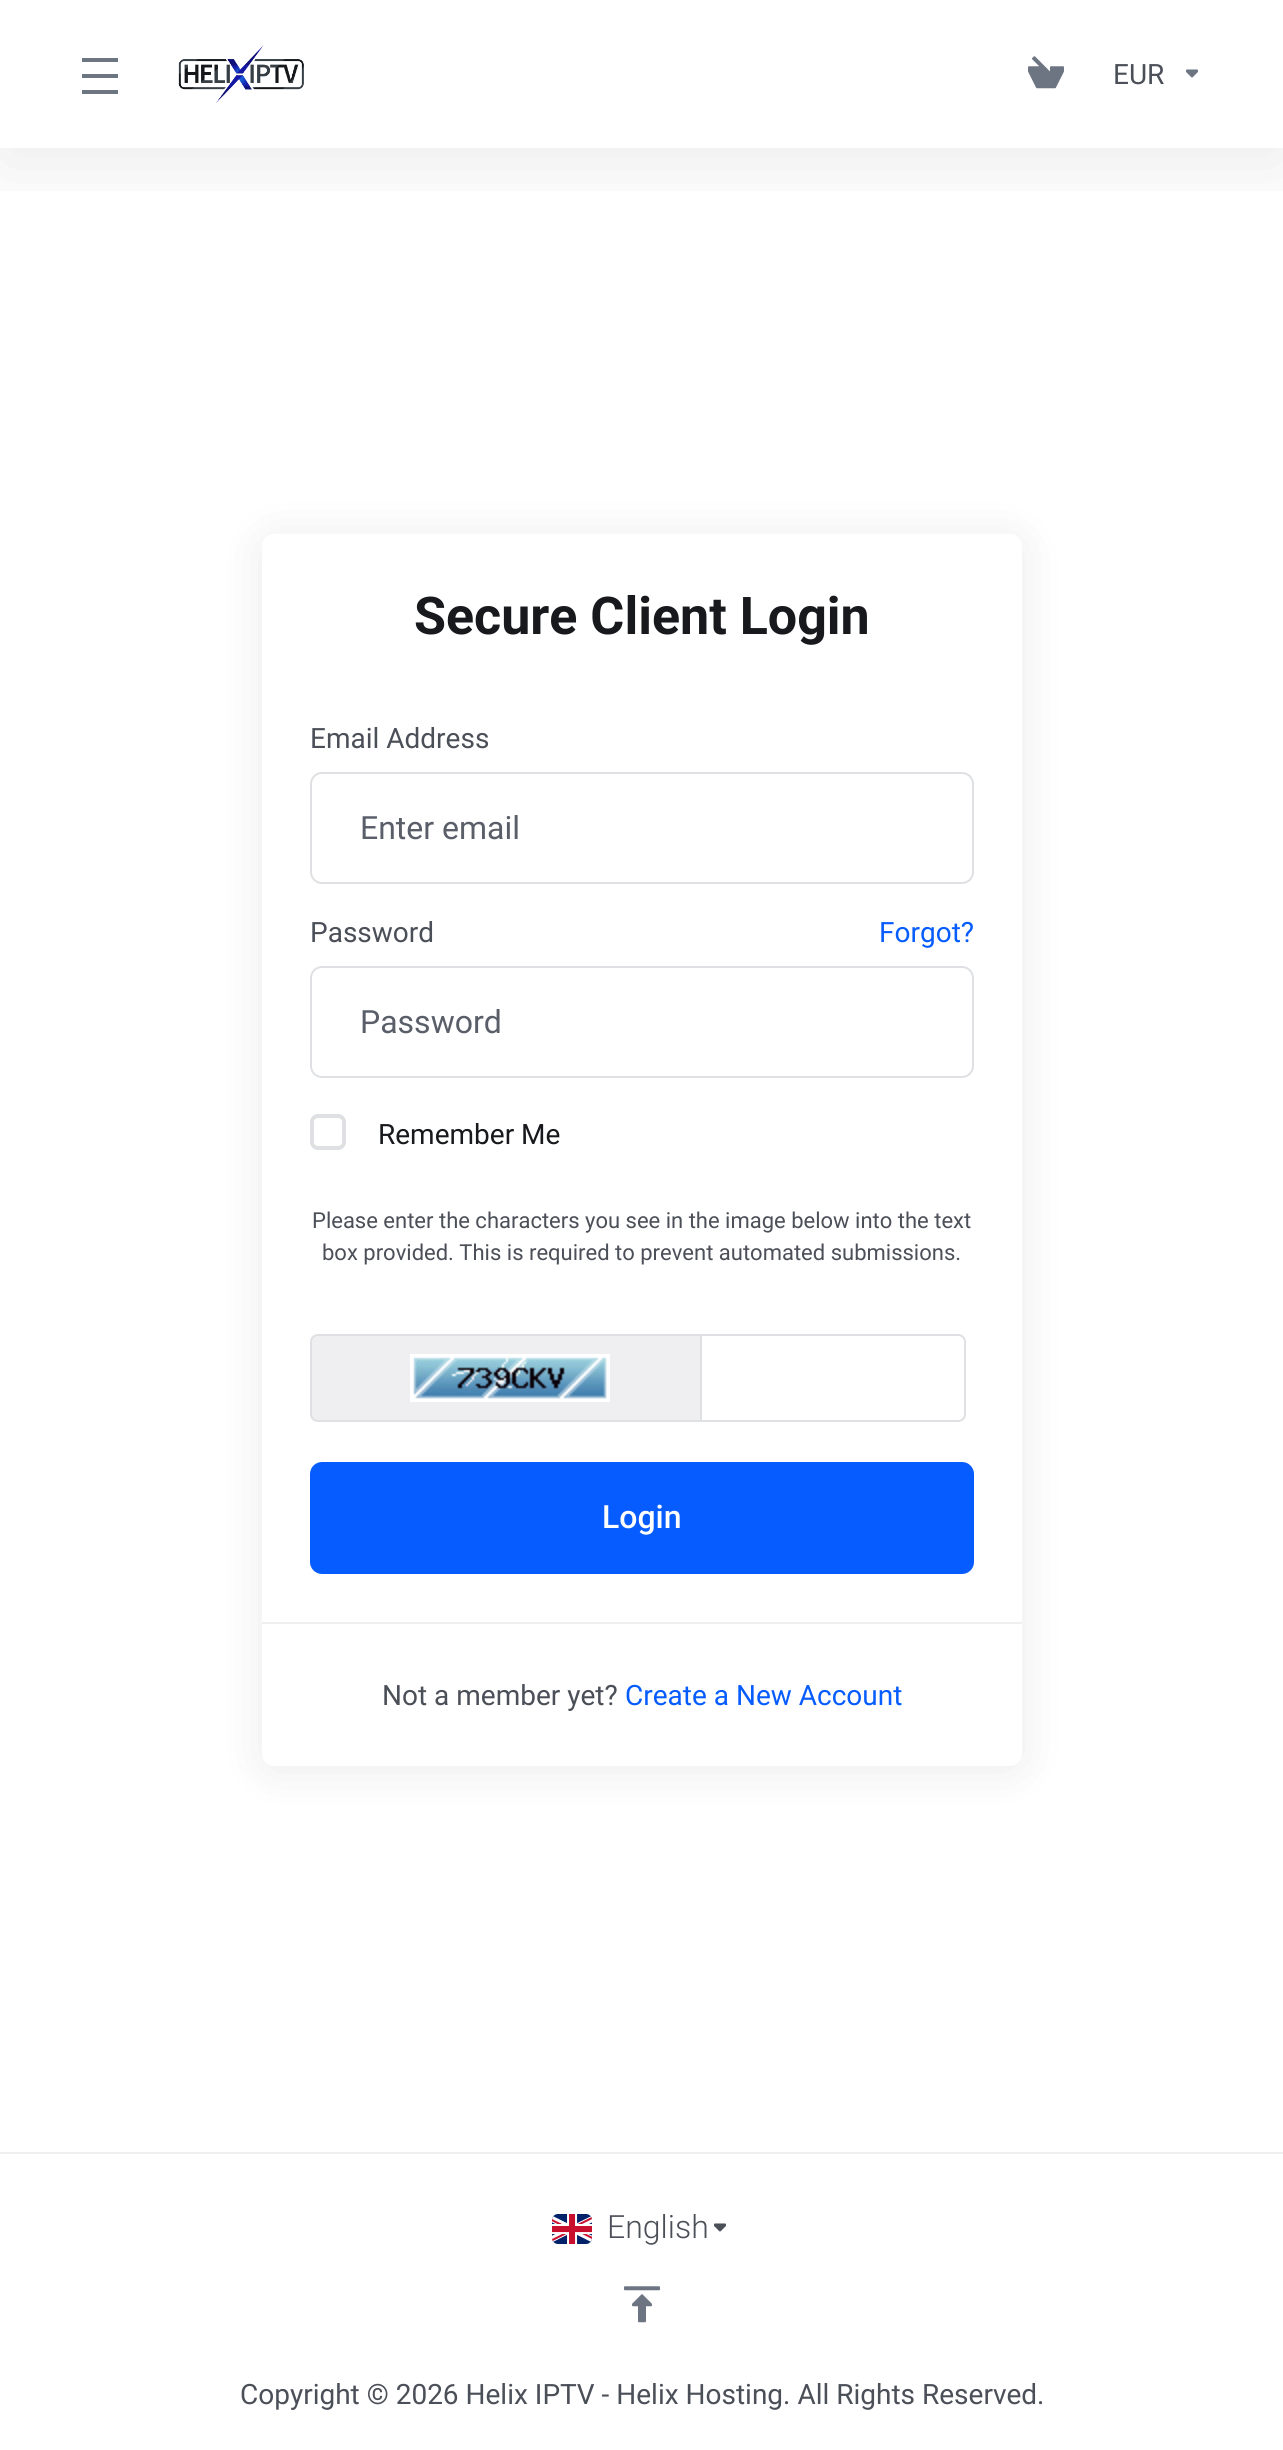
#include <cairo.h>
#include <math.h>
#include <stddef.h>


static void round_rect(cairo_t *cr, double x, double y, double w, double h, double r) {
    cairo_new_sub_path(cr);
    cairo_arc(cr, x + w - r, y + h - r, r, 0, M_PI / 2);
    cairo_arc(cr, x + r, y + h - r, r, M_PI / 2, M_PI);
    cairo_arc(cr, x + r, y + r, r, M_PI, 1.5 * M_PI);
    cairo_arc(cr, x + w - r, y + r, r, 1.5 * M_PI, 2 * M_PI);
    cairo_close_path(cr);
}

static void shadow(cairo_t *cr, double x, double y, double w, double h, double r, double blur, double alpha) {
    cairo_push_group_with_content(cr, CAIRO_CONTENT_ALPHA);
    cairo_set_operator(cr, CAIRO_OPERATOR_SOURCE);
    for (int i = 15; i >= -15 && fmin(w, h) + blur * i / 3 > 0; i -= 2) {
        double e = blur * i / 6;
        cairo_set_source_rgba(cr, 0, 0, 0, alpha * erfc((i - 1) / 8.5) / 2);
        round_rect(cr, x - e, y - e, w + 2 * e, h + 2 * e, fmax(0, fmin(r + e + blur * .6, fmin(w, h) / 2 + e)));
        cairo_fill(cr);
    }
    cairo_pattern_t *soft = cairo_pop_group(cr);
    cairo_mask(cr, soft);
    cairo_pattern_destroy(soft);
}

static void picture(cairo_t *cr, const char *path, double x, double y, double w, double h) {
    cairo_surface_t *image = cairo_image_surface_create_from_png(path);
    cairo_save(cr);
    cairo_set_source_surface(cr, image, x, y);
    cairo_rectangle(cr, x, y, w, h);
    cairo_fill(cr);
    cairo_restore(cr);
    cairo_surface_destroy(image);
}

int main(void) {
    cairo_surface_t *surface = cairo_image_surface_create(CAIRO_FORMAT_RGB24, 1283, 2450);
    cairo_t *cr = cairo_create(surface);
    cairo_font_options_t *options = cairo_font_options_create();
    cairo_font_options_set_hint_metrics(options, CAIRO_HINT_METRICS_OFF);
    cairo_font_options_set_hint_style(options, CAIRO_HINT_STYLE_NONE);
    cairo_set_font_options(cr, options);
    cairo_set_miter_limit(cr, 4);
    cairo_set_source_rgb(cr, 1, 1, 1);
    cairo_paint(cr);
    cairo_save(cr);
    cairo_rectangle(cr, 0, 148, 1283, 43);
    cairo_clip(cr);
    cairo_set_source_rgb(cr, 0, 0, 0);
    shadow(cr, 0, 16, 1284, 148, 0, 40, 0.08);
    cairo_restore(cr);
    cairo_set_source_rgb(cr, 0.427, 0.455, 0.51);
    cairo_rectangle(cr, 82, 58, 36, 4);
    cairo_fill(cr);
    cairo_rectangle(cr, 82, 74, 36, 4);
    cairo_fill(cr);
    cairo_rectangle(cr, 82, 90, 36, 4);
    cairo_fill(cr);
    picture(cr, "img1.png", 178, 45, 126, 58);
    picture(cr, "img2.png", 1028, 56, 36, 33);
    cairo_select_font_face(cr, "Roboto", CAIRO_FONT_SLANT_NORMAL, CAIRO_FONT_WEIGHT_NORMAL);
    cairo_set_font_size(cr, 28);
    cairo_set_source_rgb(cr, 0.294, 0.31, 0.345);
    cairo_move_to(cr, 1113, 84);
    cairo_show_text(cr, "EUR");
    picture(cr, "img3.png", 1186, 69, 12, 9);
    cairo_set_source_rgb(cr, 0, 0, 0);
    shadow(cr, 262, 538, 760, 1232, 12, 24, 0.08);
    cairo_set_source_rgb(cr, 1, 1, 1);
    round_rect(cr, 262, 534, 760, 1232, 12);
    cairo_fill(cr);
    cairo_select_font_face(cr, "Roboto", CAIRO_FONT_SLANT_NORMAL, CAIRO_FONT_WEIGHT_BOLD);
    cairo_set_font_size(cr, 52);
    cairo_set_source_rgb(cr, 0.09, 0.098, 0.11);
    cairo_move_to(cr, 414, 634);
    cairo_show_text(cr, "Secure Client Login");
    cairo_select_font_face(cr, "Roboto", CAIRO_FONT_SLANT_NORMAL, CAIRO_FONT_WEIGHT_NORMAL);
    cairo_set_font_size(cr, 28);
    cairo_set_source_rgb(cr, 0.294, 0.31, 0.345);
    cairo_move_to(cr, 310, 748);
    cairo_show_text(cr, "Email Address");
    round_rect(cr, 311, 773, 662, 110, 11);
    cairo_set_source_rgb(cr, 0.871, 0.878, 0.89);
    cairo_stroke(cr);
    cairo_set_font_size(cr, 32);
    cairo_set_source_rgb(cr, 0.349, 0.369, 0.412);
    cairo_move_to(cr, 360, 839);
    cairo_show_text(cr, "Enter email");
    cairo_set_font_size(cr, 28);
    cairo_set_source_rgb(cr, 0.294, 0.31, 0.345);
    cairo_move_to(cr, 310, 942);
    cairo_show_text(cr, "Password");
    cairo_set_source_rgb(cr, 0.024, 0.361, 0.996);
    cairo_move_to(cr, 879, 942);
    cairo_show_text(cr, "Forgot?");
    round_rect(cr, 311, 967, 662, 110, 11);
    cairo_set_source_rgb(cr, 0.871, 0.878, 0.89);
    cairo_stroke(cr);
    cairo_set_font_size(cr, 32);
    cairo_set_source_rgb(cr, 0.349, 0.369, 0.412);
    cairo_move_to(cr, 360, 1033);
    cairo_show_text(cr, "Password");
    round_rect(cr, 312, 1116, 32, 32, 6);
    cairo_set_source_rgb(cr, 0.871, 0.878, 0.89);
    cairo_set_line_width(cr, 4);
    cairo_stroke(cr);
    cairo_set_font_size(cr, 28);
    cairo_set_source_rgb(cr, 0.09, 0.098, 0.11);
    cairo_move_to(cr, 378, 1144);
    cairo_show_text(cr, "Remember Me");
    cairo_set_font_size(cr, 22);
    cairo_set_source_rgb(cr, 0.294, 0.31, 0.345);
    cairo_move_to(cr, 312, 1228);
    cairo_show_text(cr, "Please enter the characters you see in the image below into the text");
    cairo_move_to(cr, 322, 1260);
    cairo_show_text(cr, "box provided. This is required to prevent automated submissions.");
    cairo_set_source_rgb(cr, 0.937, 0.937, 0.945);
    cairo_new_path(cr);
    cairo_move_to(cr, 318, 1335);
    cairo_line_to(cr, 707, 1335);
    cairo_line_to(cr, 707, 1421);
    cairo_line_to(cr, 318, 1421);
    cairo_curve_to(cr, 314, 1421, 311, 1418, 311, 1414);
    cairo_line_to(cr, 311, 1342);
    cairo_curve_to(cr, 311, 1338, 314, 1335, 318, 1335);
    cairo_close_path(cr);
    cairo_fill_preserve(cr);
    cairo_set_source_rgb(cr, 0.871, 0.878, 0.89);
    cairo_set_line_width(cr, 2);
    cairo_stroke(cr);
    picture(cr, "img4.png", 410, 1354, 200, 48);
    cairo_set_source_rgb(cr, 1, 1, 1);
    cairo_new_path(cr);
    cairo_move_to(cr, 701, 1335);
    cairo_line_to(cr, 958, 1335);
    cairo_curve_to(cr, 962, 1335, 965, 1338, 965, 1342);
    cairo_line_to(cr, 965, 1414);
    cairo_curve_to(cr, 965, 1418, 962, 1421, 958, 1421);
    cairo_line_to(cr, 701, 1421);
    cairo_close_path(cr);
    cairo_fill_preserve(cr);
    cairo_set_source_rgb(cr, 0.871, 0.878, 0.89);
    cairo_stroke(cr);
    cairo_set_source_rgb(cr, 0.024, 0.361, 0.996);
    round_rect(cr, 311, 1463, 662, 110, 11);
    cairo_fill_preserve(cr);
    cairo_stroke(cr);
    cairo_select_font_face(cr, "Roboto Medium", CAIRO_FONT_SLANT_NORMAL, CAIRO_FONT_WEIGHT_NORMAL);
    cairo_set_font_size(cr, 32);
    cairo_set_source_rgb(cr, 1, 1, 1);
    cairo_move_to(cr, 602, 1528);
    cairo_show_text(cr, "Login");
    cairo_set_source_rgb(cr, 0.937, 0.937, 0.945);
    cairo_rectangle(cr, 262, 1622, 760, 2);
    cairo_fill(cr);
    cairo_select_font_face(cr, "Roboto", CAIRO_FONT_SLANT_NORMAL, CAIRO_FONT_WEIGHT_NORMAL);
    cairo_set_font_size(cr, 28);
    cairo_set_source_rgb(cr, 0.294, 0.31, 0.345);
    cairo_move_to(cr, 382, 1705);
    cairo_show_text(cr, "Not a member yet?");
    cairo_set_source_rgb(cr, 0.024, 0.361, 0.996);
    cairo_move_to(cr, 625, 1705);
    cairo_show_text(cr, "Create a New Account");
    cairo_set_source_rgb(cr, 0.937, 0.937, 0.945);
    cairo_rectangle(cr, 0, 2152, 1283, 2);
    cairo_fill(cr);
    picture(cr, "img5.png", 552, 2214, 40, 30);
    cairo_select_font_face(cr, "Roboto Light", CAIRO_FONT_SLANT_NORMAL, CAIRO_FONT_WEIGHT_NORMAL);
    cairo_set_font_size(cr, 32);
    cairo_set_source_rgb(cr, 0.294, 0.31, 0.345);
    cairo_move_to(cr, 607, 2238);
    cairo_show_text(cr, "English");
    picture(cr, "img6.png", 714, 2223, 12, 9);
    picture(cr, "img7.png", 624, 2286, 36, 37);
    cairo_select_font_face(cr, "Roboto", CAIRO_FONT_SLANT_NORMAL, CAIRO_FONT_WEIGHT_NORMAL);
    cairo_set_font_size(cr, 28);
    cairo_move_to(cr, 240, 2404);
    cairo_show_text(cr, "Copyright © 2026 Helix IPTV - Helix Hosting. All Rights Reserved.");
    cairo_surface_write_to_png(surface, "page.png");
    cairo_font_options_destroy(options);
    cairo_destroy(cr);
    cairo_surface_destroy(surface);
    return 0;
}
